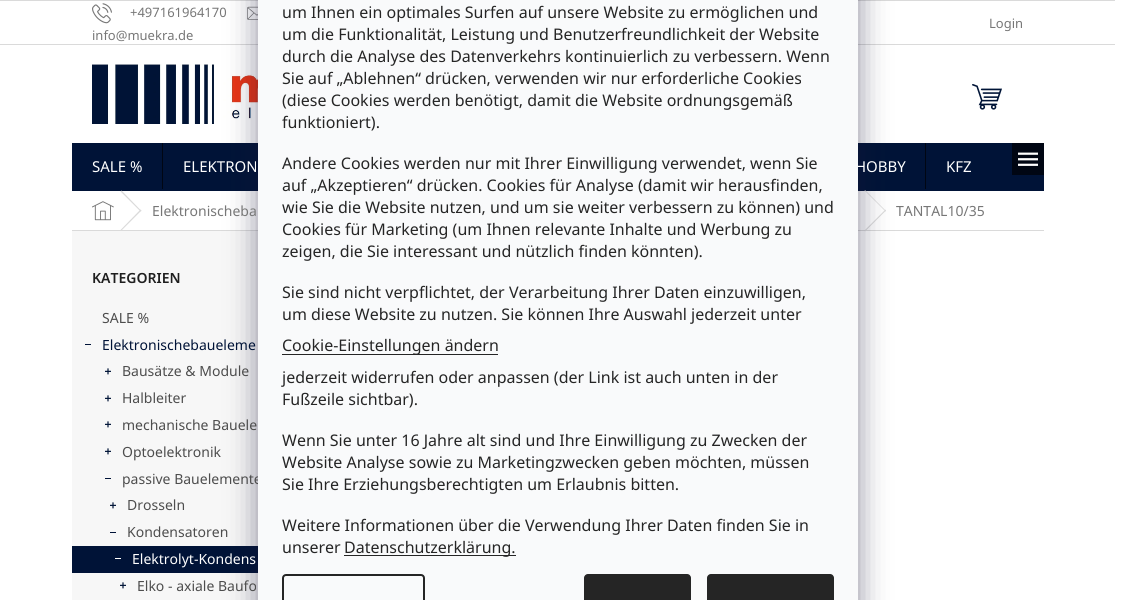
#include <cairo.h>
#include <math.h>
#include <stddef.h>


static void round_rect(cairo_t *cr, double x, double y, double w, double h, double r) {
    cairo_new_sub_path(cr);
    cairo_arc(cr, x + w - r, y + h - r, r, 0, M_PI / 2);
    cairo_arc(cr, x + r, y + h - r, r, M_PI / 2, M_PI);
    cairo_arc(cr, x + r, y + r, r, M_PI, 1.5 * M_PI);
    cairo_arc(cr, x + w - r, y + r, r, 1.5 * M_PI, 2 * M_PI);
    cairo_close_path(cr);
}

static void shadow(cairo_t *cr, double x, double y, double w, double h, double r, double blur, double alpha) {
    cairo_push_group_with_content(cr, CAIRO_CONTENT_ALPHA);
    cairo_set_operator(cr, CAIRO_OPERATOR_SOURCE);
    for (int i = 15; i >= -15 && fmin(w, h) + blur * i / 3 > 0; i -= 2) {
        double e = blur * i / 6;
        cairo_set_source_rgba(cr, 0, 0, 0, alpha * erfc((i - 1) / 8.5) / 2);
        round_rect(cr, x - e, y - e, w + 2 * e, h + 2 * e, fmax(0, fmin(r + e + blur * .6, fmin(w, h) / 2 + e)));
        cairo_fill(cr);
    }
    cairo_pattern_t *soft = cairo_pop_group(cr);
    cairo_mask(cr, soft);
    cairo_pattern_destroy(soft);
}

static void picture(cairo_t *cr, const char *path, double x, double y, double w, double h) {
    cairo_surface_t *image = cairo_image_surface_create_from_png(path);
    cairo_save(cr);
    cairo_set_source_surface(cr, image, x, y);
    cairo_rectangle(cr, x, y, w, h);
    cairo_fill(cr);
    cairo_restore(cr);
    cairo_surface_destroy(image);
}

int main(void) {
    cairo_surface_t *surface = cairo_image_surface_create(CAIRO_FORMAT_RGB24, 1130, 600);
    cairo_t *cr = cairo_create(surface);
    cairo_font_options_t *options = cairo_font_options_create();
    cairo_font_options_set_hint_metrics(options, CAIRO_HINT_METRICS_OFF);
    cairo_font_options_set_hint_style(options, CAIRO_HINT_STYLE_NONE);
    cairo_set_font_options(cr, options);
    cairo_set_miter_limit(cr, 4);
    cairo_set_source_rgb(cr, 1, 1, 1);
    cairo_paint(cr);
    cairo_set_source_rgb(cr, 0.855, 0.855, 0.855);
    cairo_rectangle(cr, 0, 0, 1115, 1);
    cairo_fill(cr);
    cairo_rectangle(cr, 0, 44, 1115, 1);
    cairo_fill(cr);
    picture(cr, "img2.png", 247, 6, 11, 14);
    picture(cr, "img3.png", 92, 64, 166, 60);
    cairo_set_source_rgb(cr, 0, 0.078, 0.216);
    cairo_rectangle(cr, 72, 143, 972, 48);
    cairo_fill(cr);
    cairo_set_source_rgb(cr, 0.855, 0.855, 0.855);
    cairo_rectangle(cr, 72, 230, 972, 1);
    cairo_fill(cr);
    cairo_new_path(cr);
    cairo_move_to(cr, 864.5, 190.5);
    cairo_line_to(cr, 865, 190);
    cairo_line_to(cr, 886, 211);
    cairo_line_to(cr, 885.5, 211.5);
    cairo_close_path(cr);
    cairo_fill(cr);
    cairo_new_path(cr);
    cairo_move_to(cr, 885.5, 209.5);
    cairo_line_to(cr, 886, 210.5);
    cairo_line_to(cr, 865, 231.5);
    cairo_line_to(cr, 864.5, 230.5);
    cairo_close_path(cr);
    cairo_fill(cr);
    cairo_set_source_rgb(cr, 0.965, 0.965, 0.965);
    cairo_rectangle(cr, 72, 231, 186, 369);
    cairo_fill(cr);
    cairo_set_source_rgb(cr, 0, 0.078, 0.216);
    cairo_rectangle(cr, 72, 546, 186, 27);
    cairo_fill(cr);
    cairo_set_source_rgb(cr, 0.106, 0.098, 0.224);
    shadow(cr, 258, -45, 600, 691, 8, 15, 0.5);
    cairo_select_font_face(cr, "Noto Sans", CAIRO_FONT_SLANT_NORMAL, CAIRO_FONT_WEIGHT_NORMAL);
    cairo_set_font_size(cr, 15);
    cairo_set_source_rgb(cr, 1, 1, 1);
    cairo_move_to(cr, 855, 172);
    cairo_show_text(cr, "HOBBY");
    cairo_set_font_size(cr, 14);
    cairo_set_source_rgb(cr, 0.302, 0.302, 0.302);
    cairo_move_to(cr, 122, 484);
    cairo_show_text(cr, "passive Bauelemente");
    cairo_set_source_rgb(cr, 0.973, 0.98, 0.984);
    cairo_rectangle(cr, 258, 0, 600, 600);
    cairo_fill(cr);
    cairo_set_font_size(cr, 16);
    cairo_set_source_rgb(cr, 0.145, 0.145, 0.145);
    cairo_move_to(cr, 282, 18);
    cairo_show_text(cr, "um Ihnen ein optimales Surfen auf unsere Website zu ermöglichen und");
    cairo_move_to(cr, 282, 40);
    cairo_show_text(cr, "um die Funktionalität, Leistung und Benutzerfreundlichkeit der Website");
    cairo_move_to(cr, 282, 62);
    cairo_show_text(cr, "durch die Analyse des Datenverkehrs kontinuierlich zu verbessern. Wenn");
    cairo_move_to(cr, 282, 84);
    cairo_show_text(cr, "Sie auf „Ablehnen“ drücken, verwenden wir nur erforderliche Cookies");
    cairo_move_to(cr, 282, 106);
    cairo_show_text(cr, "(diese Cookies werden benötigt, damit die Website ordnungsgemäß");
    cairo_move_to(cr, 282, 128);
    cairo_show_text(cr, "funktioniert).");
    cairo_move_to(cr, 282, 169);
    cairo_show_text(cr, "Andere Cookies werden nur mit Ihrer Einwilligung verwendet, wenn Sie");
    cairo_move_to(cr, 282, 191);
    cairo_show_text(cr, "auf „Akzeptieren“ drücken. Cookies für Analyse (damit wir herausfinden,");
    cairo_move_to(cr, 282, 213);
    cairo_show_text(cr, "wie Sie die Website nutzen, und um sie weiter verbessern zu können) und");
    cairo_move_to(cr, 282, 235);
    cairo_show_text(cr, "Cookies für Marketing (um Ihnen relevante Inhalte und Werbung zu");
    cairo_move_to(cr, 282, 257);
    cairo_show_text(cr, "zeigen, die Sie interessant und nützlich finden könnten).");
    cairo_move_to(cr, 282, 298);
    cairo_show_text(cr, "Sie sind nicht verpflichtet, der Verarbeitung Ihrer Daten einzuwilligen,");
    cairo_move_to(cr, 282, 320);
    cairo_show_text(cr, "um diese Website zu nutzen. Sie können Ihre Auswahl jederzeit unter");
    cairo_rectangle(cr, 282, 354, 216, 1);
    cairo_fill(cr);
    cairo_move_to(cr, 282, 351);
    cairo_show_text(cr, "Cookie-Einstellungen ändern");
    cairo_move_to(cr, 282, 383);
    cairo_show_text(cr, "jederzeit widerrufen oder anpassen (der Link ist auch unten in der");
    cairo_move_to(cr, 282, 405);
    cairo_show_text(cr, "Fußzeile sichtbar).");
    cairo_move_to(cr, 282, 446);
    cairo_show_text(cr, "Wenn Sie unter 16 Jahre alt sind und Ihre Einwilligung zu Zwecken der");
    cairo_move_to(cr, 282, 468);
    cairo_show_text(cr, "Website Analyse sowie zu Marketingzwecken geben möchten, müssen");
    cairo_move_to(cr, 282, 490);
    cairo_show_text(cr, "Sie Ihre Erziehungsberechtigten um Erlaubnis bitten.");
    cairo_move_to(cr, 282, 531);
    cairo_show_text(cr, "Weitere Informationen über die Verwendung Ihrer Daten finden Sie in");
    cairo_move_to(cr, 282, 553);
    cairo_show_text(cr, "unserer");
    cairo_rectangle(cr, 344, 555, 172, 1);
    cairo_fill(cr);
    cairo_move_to(cr, 344, 553);
    cairo_show_text(cr, "Datenschutzerklärung.");
    round_rect(cr, 283, 575, 141, 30, 3);
    cairo_stroke(cr);
    round_rect(cr, 584, 574, 107, 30, 4);
    cairo_fill(cr);
    round_rect(cr, 707, 574, 127, 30, 4);
    cairo_fill(cr);
    picture(cr, "img1.png", 92, 3, 20, 21);
    cairo_set_font_size(cr, 13);
    cairo_set_source_rgb(cr, 0.467, 0.467, 0.467);
    cairo_move_to(cr, 130, 17);
    cairo_show_text(cr, "+497161964170");
    cairo_move_to(cr, 92, 40);
    cairo_show_text(cr, "info@muekra.de");
    cairo_move_to(cr, 989, 28);
    cairo_show_text(cr, "Login");
    picture(cr, "img4.png", 972, 84, 30, 26);
    cairo_set_font_size(cr, 15);
    cairo_set_source_rgb(cr, 1, 1, 1);
    cairo_move_to(cr, 92, 172);
    cairo_show_text(cr, "SALE %");
    cairo_set_source_rgb(cr, 0, 0.027, 0.078);
    cairo_rectangle(cr, 162, 143, 1, 46);
    cairo_fill(cr);
    cairo_set_source_rgb(cr, 1, 1, 1);
    cairo_move_to(cr, 183, 172);
    cairo_show_text(cr, "ELEKTRON");
    cairo_set_source_rgb(cr, 0, 0.027, 0.078);
    cairo_rectangle(cr, 925, 143, 1, 46);
    cairo_fill(cr);
    cairo_set_source_rgb(cr, 1, 1, 1);
    cairo_move_to(cr, 946, 172);
    cairo_show_text(cr, "KFZ");
    cairo_set_source_rgb(cr, 0, 0.027, 0.078);
    cairo_rectangle(cr, 1012, 143, 32, 32);
    cairo_fill(cr);
    picture(cr, "img5.png", 1018, 152, 20, 14);
    picture(cr, "img6.png", 92, 201, 22, 20);
    cairo_set_source_rgb(cr, 0.855, 0.855, 0.855);
    cairo_new_path(cr);
    cairo_move_to(cr, 120.5, 191.5);
    cairo_line_to(cr, 121.5, 190.5);
    cairo_line_to(cr, 141.5, 211);
    cairo_line_to(cr, 140.5, 211.5);
    cairo_close_path(cr);
    cairo_fill(cr);
    cairo_new_path(cr);
    cairo_move_to(cr, 140.5, 209.5);
    cairo_line_to(cr, 141.5, 210.5);
    cairo_line_to(cr, 121.5, 230.5);
    cairo_line_to(cr, 120.5, 230);
    cairo_close_path(cr);
    cairo_fill(cr);
    cairo_set_font_size(cr, 14);
    cairo_set_source_rgb(cr, 0.467, 0.467, 0.467);
    cairo_move_to(cr, 152, 216);
    cairo_show_text(cr, "Elektronischeba");
    cairo_move_to(cr, 896, 216);
    cairo_show_text(cr, "TANTAL10/35");
    cairo_select_font_face(cr, "Noto Sans SemiBold", CAIRO_FONT_SLANT_NORMAL, CAIRO_FONT_WEIGHT_NORMAL);
    cairo_set_source_rgb(cr, 0.122, 0.122, 0.122);
    cairo_move_to(cr, 92, 283);
    cairo_show_text(cr, "KATEGORIEN");
    cairo_select_font_face(cr, "Noto Sans", CAIRO_FONT_SLANT_NORMAL, CAIRO_FONT_WEIGHT_NORMAL);
    cairo_set_source_rgb(cr, 0.302, 0.302, 0.302);
    cairo_move_to(cr, 102, 323);
    cairo_show_text(cr, "SALE %");
    cairo_set_source_rgb(cr, 0, 0.078, 0.216);
    cairo_rectangle(cr, 85, 344, 6, 1);
    cairo_fill(cr);
    cairo_move_to(cr, 102, 350);
    cairo_show_text(cr, "Elektronischebaueleme");
    picture(cr, "img7.png", 105, 368, 6, 7);
    cairo_set_source_rgb(cr, 0.302, 0.302, 0.302);
    cairo_move_to(cr, 122, 376);
    cairo_show_text(cr, "Bausätze & Module");
    picture(cr, "img7.png", 105, 395, 6, 7);
    cairo_move_to(cr, 122, 403);
    cairo_show_text(cr, "Halbleiter");
    picture(cr, "img7.png", 105, 421, 6, 7);
    cairo_move_to(cr, 122, 430);
    cairo_show_text(cr, "mechanische Bauele");
    picture(cr, "img7.png", 105, 448, 6, 7);
    cairo_move_to(cr, 122, 457);
    cairo_show_text(cr, "Optoelektronik");
    cairo_set_source_rgb(cr, 0, 0.078, 0.216);
    cairo_rectangle(cr, 105, 478, 6, 1);
    cairo_fill(cr);
    picture(cr, "img7.png", 110, 502, 6, 7);
    cairo_set_source_rgb(cr, 0.302, 0.302, 0.302);
    cairo_move_to(cr, 127, 510);
    cairo_show_text(cr, "Drosseln");
    cairo_set_source_rgb(cr, 0, 0.078, 0.216);
    cairo_rectangle(cr, 110, 532, 6, 1);
    cairo_fill(cr);
    cairo_set_source_rgb(cr, 0.302, 0.302, 0.302);
    cairo_move_to(cr, 127, 537);
    cairo_show_text(cr, "Kondensatoren");
    cairo_set_source_rgb(cr, 1, 1, 1);
    cairo_rectangle(cr, 115, 558, 6, 1);
    cairo_fill(cr);
    cairo_move_to(cr, 132, 564);
    cairo_show_text(cr, "Elektrolyt-Kondens");
    picture(cr, "img7.png", 120, 582, 6, 7);
    cairo_set_source_rgb(cr, 0.302, 0.302, 0.302);
    cairo_move_to(cr, 137, 591);
    cairo_show_text(cr, "Elko - axiale Baufo");
    cairo_surface_write_to_png(surface, "page.png");
    cairo_font_options_destroy(options);
    cairo_destroy(cr);
    cairo_surface_destroy(surface);
    return 0;
}
